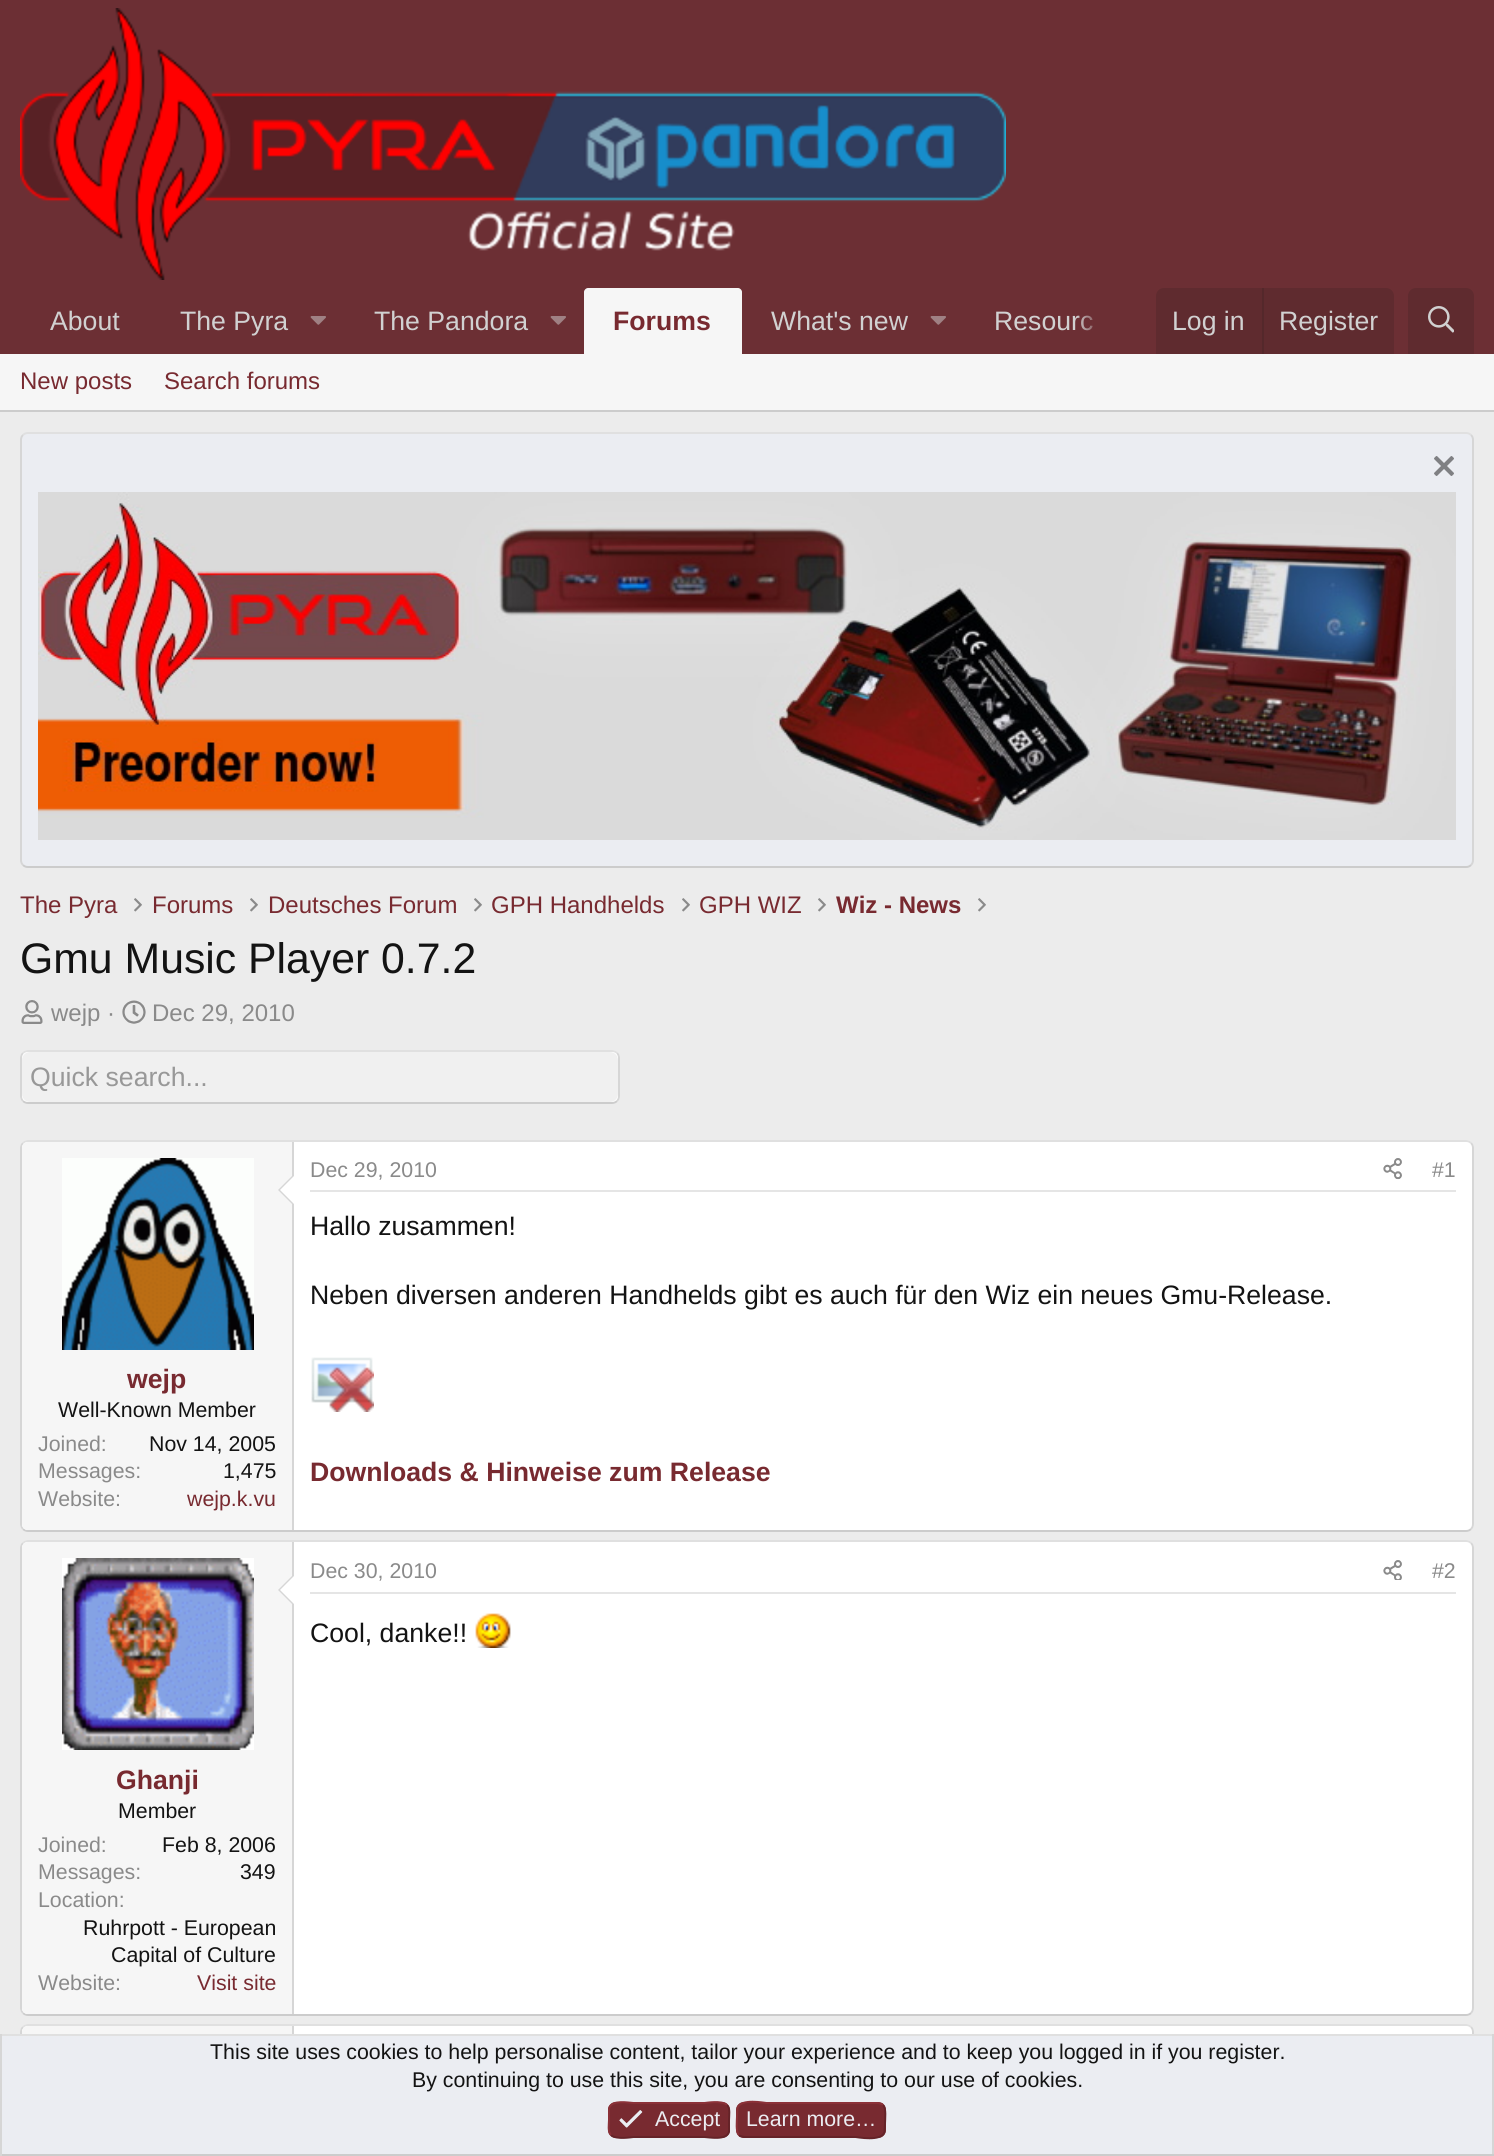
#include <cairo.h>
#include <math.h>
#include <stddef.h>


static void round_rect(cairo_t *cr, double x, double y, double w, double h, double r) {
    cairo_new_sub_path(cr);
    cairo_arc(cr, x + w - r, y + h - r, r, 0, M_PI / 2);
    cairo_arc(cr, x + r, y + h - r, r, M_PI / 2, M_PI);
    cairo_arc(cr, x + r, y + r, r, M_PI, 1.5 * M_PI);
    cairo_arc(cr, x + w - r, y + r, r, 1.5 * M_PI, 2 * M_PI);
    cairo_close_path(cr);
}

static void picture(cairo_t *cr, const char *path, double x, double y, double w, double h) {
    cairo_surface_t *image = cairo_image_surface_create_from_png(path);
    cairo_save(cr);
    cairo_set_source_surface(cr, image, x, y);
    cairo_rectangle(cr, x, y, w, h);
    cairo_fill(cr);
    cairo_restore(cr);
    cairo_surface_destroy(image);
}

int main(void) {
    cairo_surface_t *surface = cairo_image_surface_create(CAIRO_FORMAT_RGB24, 1494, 2156);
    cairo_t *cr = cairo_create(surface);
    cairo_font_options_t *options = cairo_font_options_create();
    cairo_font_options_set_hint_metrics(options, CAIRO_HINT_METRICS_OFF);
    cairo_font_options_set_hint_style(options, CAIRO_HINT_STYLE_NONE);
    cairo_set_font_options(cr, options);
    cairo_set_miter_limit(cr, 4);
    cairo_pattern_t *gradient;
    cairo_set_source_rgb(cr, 0.922, 0.922, 0.922);
    cairo_paint(cr);
    cairo_set_source_rgb(cr, 0.424, 0.184, 0.204);
    cairo_rectangle(cr, 0, 0, 1494, 354);
    cairo_fill(cr);
    picture(cr, "img1.png", 20, 8, 986, 272);
    cairo_select_font_face(cr, "Liberation Sans", CAIRO_FONT_SLANT_NORMAL, CAIRO_FONT_WEIGHT_NORMAL);
    cairo_set_font_size(cr, 26.65);
    cairo_set_source_rgb(cr, 0.82, 0.82, 0.82);
    cairo_move_to(cr, 50, 330);
    cairo_show_text(cr, "About");
    cairo_move_to(cr, 180, 330);
    cairo_show_text(cr, "The Pyra");
    picture(cr, "img2.png", 310, 316, 16, 9);
    cairo_move_to(cr, 374, 330);
    cairo_show_text(cr, "The Pandora");
    picture(cr, "img2.png", 550, 316, 16, 9);
    cairo_set_source_rgb(cr, 0.961, 0.961, 0.961);
    cairo_new_path(cr);
    cairo_move_to(cr, 588, 288);
    cairo_line_to(cr, 738, 288);
    cairo_curve_to(cr, 740, 288, 742, 290, 742, 292);
    cairo_line_to(cr, 742, 354);
    cairo_line_to(cr, 584, 354);
    cairo_line_to(cr, 584, 292);
    cairo_curve_to(cr, 584, 290, 586, 288, 588, 288);
    cairo_close_path(cr);
    cairo_fill(cr);
    cairo_select_font_face(cr, "Liberation Sans", CAIRO_FONT_SLANT_NORMAL, CAIRO_FONT_WEIGHT_BOLD);
    cairo_set_source_rgb(cr, 0.471, 0.165, 0.188);
    cairo_move_to(cr, 613, 330);
    cairo_show_text(cr, "Forums");
    cairo_select_font_face(cr, "Liberation Sans", CAIRO_FONT_SLANT_NORMAL, CAIRO_FONT_WEIGHT_NORMAL);
    cairo_set_source_rgb(cr, 0.82, 0.82, 0.82);
    cairo_move_to(cr, 771, 330);
    cairo_show_text(cr, "What's new");
    picture(cr, "img2.png", 930, 316, 16, 9);
    cairo_move_to(cr, 994, 330);
    cairo_show_text(cr, "Resourc");
    gradient = cairo_pattern_create_linear(1076, 321, 1156, 321);
    cairo_pattern_add_color_stop_rgba(gradient, 0, 0.424, 0.184, 0.204, 0);
    cairo_pattern_add_color_stop_rgba(gradient, 0.33, 0.424, 0.184, 0.204, 1);
    cairo_set_source(cr, gradient);
    cairo_pattern_destroy(gradient);
    cairo_rectangle(cr, 1077, 315, 16, 16);
    cairo_fill(cr);
    cairo_set_source_rgb(cr, 0.373, 0.169, 0.184);
    cairo_new_path(cr);
    cairo_move_to(cr, 1164, 288);
    cairo_line_to(cr, 1386, 288);
    cairo_curve_to(cr, 1390.5, 288, 1394, 291.5, 1394, 296);
    cairo_line_to(cr, 1394, 354);
    cairo_line_to(cr, 1156, 354);
    cairo_line_to(cr, 1156, 296);
    cairo_curve_to(cr, 1156, 291.5, 1159.5, 288, 1164, 288);
    cairo_close_path(cr);
    cairo_fill(cr);
    cairo_set_source_rgb(cr, 0.82, 0.82, 0.82);
    cairo_move_to(cr, 1172, 330);
    cairo_show_text(cr, "Log in");
    cairo_set_source_rgb(cr, 0.329, 0.157, 0.169);
    cairo_rectangle(cr, 1262, 288, 2, 66);
    cairo_fill(cr);
    cairo_set_source_rgb(cr, 0.82, 0.82, 0.82);
    cairo_move_to(cr, 1279, 330);
    cairo_show_text(cr, "Register");
    cairo_set_source_rgb(cr, 0.373, 0.169, 0.184);
    cairo_new_path(cr);
    cairo_move_to(cr, 1416, 288);
    cairo_line_to(cr, 1466, 288);
    cairo_curve_to(cr, 1470.5, 288, 1474, 291.5, 1474, 296);
    cairo_line_to(cr, 1474, 354);
    cairo_line_to(cr, 1408, 354);
    cairo_line_to(cr, 1408, 296);
    cairo_curve_to(cr, 1408, 291.5, 1411.5, 288, 1416, 288);
    cairo_close_path(cr);
    cairo_fill(cr);
    picture(cr, "img3.png", 1428, 306, 26, 27);
    cairo_set_source_rgb(cr, 0.961, 0.961, 0.961);
    cairo_rectangle(cr, 0, 354, 1494, 56);
    cairo_fill(cr);
    cairo_set_source_rgb(cr, 0.8, 0.8, 0.8);
    cairo_rectangle(cr, 0, 410, 1494, 2);
    cairo_fill(cr);
    cairo_set_font_size(cr, 24);
    cairo_set_source_rgb(cr, 0.471, 0.165, 0.188);
    cairo_move_to(cr, 20, 389);
    cairo_show_text(cr, "New posts");
    cairo_move_to(cr, 164, 389);
    cairo_show_text(cr, "Search forums");
    cairo_set_source_rgb(cr, 0.918, 0.929, 0.949);
    round_rect(cr, 20, 432, 1454, 436, 8);
    cairo_fill(cr);
    cairo_new_path(cr);
    cairo_move_to(cr, 23, 435);
    cairo_curve_to(cr, 24.5, 433.5, 26, 433, 28, 433);
    cairo_line_to(cr, 1466, 433);
    cairo_curve_to(cr, 1468, 433, 1469.5, 433.5, 1471, 435);
    cairo_set_source_rgb(cr, 0.878, 0.878, 0.878);
    cairo_stroke(cr);
    cairo_new_path(cr);
    cairo_move_to(cr, 1471, 435);
    cairo_curve_to(cr, 1472.5, 436.5, 1473, 438, 1473, 440);
    cairo_line_to(cr, 1473, 860);
    cairo_curve_to(cr, 1473, 862, 1472.5, 863.5, 1471, 865);
    cairo_set_source_rgb(cr, 0.839, 0.839, 0.839);
    cairo_stroke(cr);
    cairo_new_path(cr);
    cairo_move_to(cr, 1471, 865);
    cairo_curve_to(cr, 1469.5, 866.5, 1468, 867, 1466, 867);
    cairo_line_to(cr, 28, 867);
    cairo_curve_to(cr, 26, 867, 24.5, 866.5, 23, 865);
    cairo_set_source_rgb(cr, 0.8, 0.8, 0.8);
    cairo_stroke(cr);
    cairo_new_path(cr);
    cairo_move_to(cr, 23, 865);
    cairo_curve_to(cr, 21.5, 863.5, 21, 862, 21, 860);
    cairo_line_to(cr, 21, 440);
    cairo_curve_to(cr, 21, 438, 21.5, 436.5, 23, 435);
    cairo_set_source_rgb(cr, 0.839, 0.839, 0.839);
    cairo_stroke(cr);
    picture(cr, "img4.png", 1434, 456, 20, 20);
    picture(cr, "img5.png", 38, 492, 1418, 348);
    cairo_set_source_rgb(cr, 0.471, 0.165, 0.188);
    cairo_move_to(cr, 20, 913);
    cairo_show_text(cr, "The Pyra");
    picture(cr, "img6.png", 134, 898, 8, 14);
    cairo_move_to(cr, 152, 913);
    cairo_show_text(cr, "Forums");
    picture(cr, "img6.png", 250, 898, 8, 14);
    cairo_move_to(cr, 268, 913);
    cairo_show_text(cr, "Deutsches Forum");
    picture(cr, "img6.png", 474, 898, 8, 14);
    cairo_move_to(cr, 491, 913);
    cairo_show_text(cr, "GPH Handhelds");
    picture(cr, "img6.png", 682, 898, 8, 14);
    cairo_move_to(cr, 699, 913);
    cairo_show_text(cr, "GPH WIZ");
    picture(cr, "img6.png", 818, 898, 8, 14);
    cairo_select_font_face(cr, "Liberation Sans", CAIRO_FONT_SLANT_NORMAL, CAIRO_FONT_WEIGHT_BOLD);
    cairo_move_to(cr, 836, 913);
    cairo_show_text(cr, "Wiz - News");
    picture(cr, "img6.png", 978, 898, 8, 14);
    cairo_select_font_face(cr, "Liberation Sans", CAIRO_FONT_SLANT_NORMAL, CAIRO_FONT_WEIGHT_NORMAL);
    cairo_set_font_size(cr, 42.75);
    cairo_set_source_rgb(cr, 0.078, 0.078, 0.078);
    cairo_move_to(cr, 20, 973);
    cairo_show_text(cr, "Gmu Music Player 0.7.2");
    picture(cr, "img7.png", 21, 1000, 22, 24);
    cairo_set_font_size(cr, 24);
    cairo_set_source_rgb(cr, 0.541, 0.541, 0.541);
    cairo_move_to(cr, 51, 1021);
    cairo_show_text(cr, "wejp ·");
    picture(cr, "img8.png", 122, 1000, 24, 24);
    cairo_move_to(cr, 152, 1021);
    cairo_show_text(cr, "Dec 29, 2010");
    cairo_set_source_rgb(cr, 1, 1, 1);
    round_rect(cr, 20, 1050, 600, 54, 8);
    cairo_fill(cr);
    cairo_new_path(cr);
    cairo_move_to(cr, 23, 1053);
    cairo_curve_to(cr, 24.5, 1051.5, 26, 1051, 28, 1051);
    cairo_line_to(cr, 612, 1051);
    cairo_curve_to(cr, 614, 1051, 615.5, 1051.5, 617, 1053);
    cairo_set_source_rgb(cr, 0.878, 0.878, 0.878);
    cairo_stroke(cr);
    cairo_new_path(cr);
    cairo_move_to(cr, 617, 1053);
    cairo_curve_to(cr, 618.5, 1054.5, 619, 1056, 619, 1058);
    cairo_line_to(cr, 619, 1096);
    cairo_curve_to(cr, 619, 1098, 618.5, 1099.5, 617, 1101);
    cairo_set_source_rgb(cr, 0.839, 0.839, 0.839);
    cairo_stroke(cr);
    cairo_new_path(cr);
    cairo_move_to(cr, 617, 1101);
    cairo_curve_to(cr, 615.5, 1102.5, 614, 1103, 612, 1103);
    cairo_line_to(cr, 28, 1103);
    cairo_curve_to(cr, 26, 1103, 24.5, 1102.5, 23, 1101);
    cairo_set_source_rgb(cr, 0.8, 0.8, 0.8);
    cairo_stroke(cr);
    cairo_new_path(cr);
    cairo_move_to(cr, 23, 1101);
    cairo_curve_to(cr, 21.5, 1099.5, 21, 1098, 21, 1096);
    cairo_line_to(cr, 21, 1058);
    cairo_curve_to(cr, 21, 1056, 21.5, 1054.5, 23, 1053);
    cairo_set_source_rgb(cr, 0.839, 0.839, 0.839);
    cairo_stroke(cr);
    cairo_set_source_rgb(cr, 0.941, 0.941, 0.941);
    round_rect(cr, 22, 1052, 596, 50, 8);
    cairo_fill(cr);
    cairo_set_font_size(cr, 26.65);
    cairo_set_source_rgb(cr, 0.596, 0.596, 0.596);
    cairo_move_to(cr, 30, 1086);
    cairo_show_text(cr, "Quick search...");
    cairo_set_source_rgb(cr, 1, 1, 1);
    round_rect(cr, 20, 1140, 1454, 392, 8);
    cairo_fill(cr);
    cairo_new_path(cr);
    cairo_move_to(cr, 23, 1143);
    cairo_curve_to(cr, 24.5, 1141.5, 26, 1141, 28, 1141);
    cairo_line_to(cr, 1466, 1141);
    cairo_curve_to(cr, 1468, 1141, 1469.5, 1141.5, 1471, 1143);
    cairo_set_source_rgb(cr, 0.878, 0.878, 0.878);
    cairo_stroke(cr);
    cairo_new_path(cr);
    cairo_move_to(cr, 1471, 1143);
    cairo_curve_to(cr, 1472.5, 1144.5, 1473, 1146, 1473, 1148);
    cairo_line_to(cr, 1473, 1524);
    cairo_curve_to(cr, 1473, 1526, 1472.5, 1527.5, 1471, 1529);
    cairo_set_source_rgb(cr, 0.839, 0.839, 0.839);
    cairo_stroke(cr);
    cairo_new_path(cr);
    cairo_move_to(cr, 1471, 1529);
    cairo_curve_to(cr, 1469.5, 1530.5, 1468, 1531, 1466, 1531);
    cairo_line_to(cr, 28, 1531);
    cairo_curve_to(cr, 26, 1531, 24.5, 1530.5, 23, 1529);
    cairo_set_source_rgb(cr, 0.8, 0.8, 0.8);
    cairo_stroke(cr);
    cairo_new_path(cr);
    cairo_move_to(cr, 23, 1529);
    cairo_curve_to(cr, 21.5, 1527.5, 21, 1526, 21, 1524);
    cairo_line_to(cr, 21, 1148);
    cairo_curve_to(cr, 21, 1146, 21.5, 1144.5, 23, 1143);
    cairo_set_source_rgb(cr, 0.839, 0.839, 0.839);
    cairo_stroke(cr);
    cairo_set_source_rgb(cr, 0.961, 0.961, 0.961);
    cairo_new_path(cr);
    cairo_move_to(cr, 28, 1142);
    cairo_line_to(cr, 294, 1142);
    cairo_line_to(cr, 294, 1530);
    cairo_line_to(cr, 28, 1530);
    cairo_curve_to(cr, 24.5, 1530, 22, 1527.5, 22, 1524);
    cairo_line_to(cr, 22, 1148);
    cairo_curve_to(cr, 22, 1144.5, 24.5, 1142, 28, 1142);
    cairo_close_path(cr);
    cairo_fill(cr);
    cairo_set_source_rgb(cr, 0.839, 0.839, 0.839);
    cairo_rectangle(cr, 292, 1142, 2, 388);
    cairo_fill(cr);
    picture(cr, "img9.png", 62, 1158, 192, 192);
    cairo_new_path(cr);
    cairo_move_to(cr, 294, 1174);
    cairo_line_to(cr, 294, 1206);
    cairo_line_to(cr, 278, 1190);
    cairo_close_path(cr);
    cairo_fill(cr);
    cairo_set_source_rgb(cr, 1, 1, 1);
    cairo_new_path(cr);
    cairo_move_to(cr, 294, 1176);
    cairo_line_to(cr, 294, 1204);
    cairo_line_to(cr, 280, 1190);
    cairo_close_path(cr);
    cairo_fill(cr);
    cairo_select_font_face(cr, "Liberation Sans", CAIRO_FONT_SLANT_NORMAL, CAIRO_FONT_WEIGHT_BOLD);
    cairo_set_source_rgb(cr, 0.471, 0.165, 0.188);
    cairo_move_to(cr, 127, 1388);
    cairo_show_text(cr, "wejp");
    cairo_select_font_face(cr, "Liberation Sans", CAIRO_FONT_SLANT_NORMAL, CAIRO_FONT_WEIGHT_NORMAL);
    cairo_set_font_size(cr, 21.33);
    cairo_set_source_rgb(cr, 0.078, 0.078, 0.078);
    cairo_move_to(cr, 58, 1417);
    cairo_show_text(cr, "Well-Known Member");
    cairo_set_source_rgb(cr, 0.541, 0.541, 0.541);
    cairo_move_to(cr, 38, 1451);
    cairo_show_text(cr, "Joined:");
    cairo_set_source_rgb(cr, 0.078, 0.078, 0.078);
    cairo_move_to(cr, 149, 1451);
    cairo_show_text(cr, "Nov 14, 2005");
    cairo_set_source_rgb(cr, 0.541, 0.541, 0.541);
    cairo_move_to(cr, 38, 1478);
    cairo_show_text(cr, "Messages:");
    cairo_set_source_rgb(cr, 0.078, 0.078, 0.078);
    cairo_move_to(cr, 223, 1478);
    cairo_show_text(cr, "1,475");
    cairo_set_source_rgb(cr, 0.541, 0.541, 0.541);
    cairo_move_to(cr, 38, 1506);
    cairo_show_text(cr, "Website:");
    cairo_set_source_rgb(cr, 0.471, 0.165, 0.188);
    cairo_move_to(cr, 187, 1506);
    cairo_show_text(cr, "wejp.k.vu");
    cairo_set_source_rgb(cr, 0.898, 0.898, 0.898);
    cairo_rectangle(cr, 310, 1190, 1146, 2);
    cairo_fill(cr);
    cairo_set_source_rgb(cr, 0.541, 0.541, 0.541);
    cairo_move_to(cr, 310, 1177);
    cairo_show_text(cr, "Dec 29, 2010");
    picture(cr, "img10.png", 1383, 1158, 19, 22);
    cairo_move_to(cr, 1432, 1177);
    cairo_show_text(cr, "#1");
    cairo_set_font_size(cr, 26.65);
    cairo_set_source_rgb(cr, 0.078, 0.078, 0.078);
    cairo_move_to(cr, 310, 1235);
    cairo_show_text(cr, "Hallo zusammen!");
    cairo_move_to(cr, 310, 1304);
    cairo_show_text(cr, "Neben diversen anderen Handhelds gibt es auch für den Wiz ein neues Gmu-Release.");
    picture(cr, "img11.png", 311, 1357, 63, 55);
    cairo_select_font_face(cr, "Liberation Sans", CAIRO_FONT_SLANT_NORMAL, CAIRO_FONT_WEIGHT_BOLD);
    cairo_set_source_rgb(cr, 0.471, 0.165, 0.188);
    cairo_move_to(cr, 310, 1481);
    cairo_show_text(cr, "Downloads & Hinweise zum Release");
    cairo_set_source_rgb(cr, 1, 1, 1);
    round_rect(cr, 20, 1540, 1454, 476, 8);
    cairo_fill(cr);
    cairo_new_path(cr);
    cairo_move_to(cr, 23, 1543);
    cairo_curve_to(cr, 24.5, 1541.5, 26, 1541, 28, 1541);
    cairo_line_to(cr, 1466, 1541);
    cairo_curve_to(cr, 1468, 1541, 1469.5, 1541.5, 1471, 1543);
    cairo_set_source_rgb(cr, 0.878, 0.878, 0.878);
    cairo_stroke(cr);
    cairo_new_path(cr);
    cairo_move_to(cr, 1471, 1543);
    cairo_curve_to(cr, 1472.5, 1544.5, 1473, 1546, 1473, 1548);
    cairo_line_to(cr, 1473, 2008);
    cairo_curve_to(cr, 1473, 2010, 1472.5, 2011.5, 1471, 2013);
    cairo_set_source_rgb(cr, 0.839, 0.839, 0.839);
    cairo_stroke(cr);
    cairo_new_path(cr);
    cairo_move_to(cr, 1471, 2013);
    cairo_curve_to(cr, 1469.5, 2014.5, 1468, 2015, 1466, 2015);
    cairo_line_to(cr, 28, 2015);
    cairo_curve_to(cr, 26, 2015, 24.5, 2014.5, 23, 2013);
    cairo_set_source_rgb(cr, 0.8, 0.8, 0.8);
    cairo_stroke(cr);
    cairo_new_path(cr);
    cairo_move_to(cr, 23, 2013);
    cairo_curve_to(cr, 21.5, 2011.5, 21, 2010, 21, 2008);
    cairo_line_to(cr, 21, 1548);
    cairo_curve_to(cr, 21, 1546, 21.5, 1544.5, 23, 1543);
    cairo_set_source_rgb(cr, 0.839, 0.839, 0.839);
    cairo_stroke(cr);
    cairo_set_source_rgb(cr, 0.898, 0.898, 0.898);
    cairo_rectangle(cr, 310, 1592, 1146, 2);
    cairo_fill(cr);
    cairo_select_font_face(cr, "Liberation Sans", CAIRO_FONT_SLANT_NORMAL, CAIRO_FONT_WEIGHT_NORMAL);
    cairo_set_font_size(cr, 21.33);
    cairo_set_source_rgb(cr, 0.541, 0.541, 0.541);
    cairo_move_to(cr, 310, 1578);
    cairo_show_text(cr, "Dec 30, 2010");
    picture(cr, "img12.png", 1383, 1560, 19, 20);
    cairo_move_to(cr, 1432, 1578);
    cairo_show_text(cr, "#2");
    cairo_set_font_size(cr, 26.65);
    cairo_set_source_rgb(cr, 0.078, 0.078, 0.078);
    cairo_move_to(cr, 310, 1642);
    cairo_show_text(cr, "Cool, danke!!");
    picture(cr, "img13.png", 475, 1613, 36, 35);
    cairo_set_source_rgb(cr, 0.961, 0.961, 0.961);
    cairo_new_path(cr);
    cairo_move_to(cr, 28, 1542);
    cairo_line_to(cr, 294, 1542);
    cairo_line_to(cr, 294, 2014);
    cairo_line_to(cr, 28, 2014);
    cairo_curve_to(cr, 24.5, 2014, 22, 2011.5, 22, 2008);
    cairo_line_to(cr, 22, 1548);
    cairo_curve_to(cr, 22, 1544.5, 24.5, 1542, 28, 1542);
    cairo_close_path(cr);
    cairo_fill(cr);
    cairo_set_source_rgb(cr, 0.839, 0.839, 0.839);
    cairo_rectangle(cr, 292, 1542, 2, 472);
    cairo_fill(cr);
    picture(cr, "img14.png", 62, 1558, 192, 192);
    cairo_new_path(cr);
    cairo_move_to(cr, 294, 1574);
    cairo_line_to(cr, 294, 1606);
    cairo_line_to(cr, 278, 1590);
    cairo_close_path(cr);
    cairo_fill(cr);
    cairo_set_source_rgb(cr, 1, 1, 1);
    cairo_new_path(cr);
    cairo_move_to(cr, 294, 1576);
    cairo_line_to(cr, 294, 1604);
    cairo_line_to(cr, 280, 1590);
    cairo_close_path(cr);
    cairo_fill(cr);
    cairo_select_font_face(cr, "Liberation Sans", CAIRO_FONT_SLANT_NORMAL, CAIRO_FONT_WEIGHT_BOLD);
    cairo_set_source_rgb(cr, 0.471, 0.165, 0.188);
    cairo_move_to(cr, 116, 1789);
    cairo_show_text(cr, "Ghanji");
    cairo_select_font_face(cr, "Liberation Sans", CAIRO_FONT_SLANT_NORMAL, CAIRO_FONT_WEIGHT_NORMAL);
    cairo_set_font_size(cr, 21.33);
    cairo_set_source_rgb(cr, 0.078, 0.078, 0.078);
    cairo_move_to(cr, 118, 1818);
    cairo_show_text(cr, "Member");
    cairo_set_source_rgb(cr, 0.541, 0.541, 0.541);
    cairo_move_to(cr, 38, 1852);
    cairo_show_text(cr, "Joined:");
    cairo_set_source_rgb(cr, 0.078, 0.078, 0.078);
    cairo_move_to(cr, 162, 1852);
    cairo_show_text(cr, "Feb 8, 2006");
    cairo_set_source_rgb(cr, 0.541, 0.541, 0.541);
    cairo_move_to(cr, 38, 1879);
    cairo_show_text(cr, "Messages:");
    cairo_set_source_rgb(cr, 0.078, 0.078, 0.078);
    cairo_move_to(cr, 240, 1879);
    cairo_show_text(cr, "349");
    cairo_set_source_rgb(cr, 0.541, 0.541, 0.541);
    cairo_move_to(cr, 38, 1907);
    cairo_show_text(cr, "Location:");
    cairo_set_source_rgb(cr, 0.078, 0.078, 0.078);
    cairo_move_to(cr, 83, 1935);
    cairo_show_text(cr, "Ruhrpott - European");
    cairo_move_to(cr, 111, 1962);
    cairo_show_text(cr, "Capital of Culture");
    cairo_set_source_rgb(cr, 0.541, 0.541, 0.541);
    cairo_move_to(cr, 38, 1990);
    cairo_show_text(cr, "Website:");
    cairo_set_source_rgb(cr, 0.471, 0.165, 0.188);
    cairo_move_to(cr, 197, 1990);
    cairo_show_text(cr, "Visit site");
    cairo_set_source_rgb(cr, 1, 1, 1);
    round_rect(cr, 20, 2024, 1454, 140, 8);
    cairo_fill(cr);
    cairo_new_path(cr);
    cairo_move_to(cr, 23, 2027);
    cairo_curve_to(cr, 24.5, 2025.5, 26, 2025, 28, 2025);
    cairo_line_to(cr, 1466, 2025);
    cairo_curve_to(cr, 1468, 2025, 1469.5, 2025.5, 1471, 2027);
    cairo_set_source_rgb(cr, 0.878, 0.878, 0.878);
    cairo_stroke(cr);
    cairo_new_path(cr);
    cairo_move_to(cr, 1471, 2027);
    cairo_curve_to(cr, 1472.5, 2028.5, 1473, 2030, 1473, 2032);
    cairo_line_to(cr, 1473, 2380);
    cairo_curve_to(cr, 1473, 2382, 1472.5, 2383.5, 1471, 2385);
    cairo_set_source_rgb(cr, 0.839, 0.839, 0.839);
    cairo_stroke(cr);
    cairo_new_path(cr);
    cairo_move_to(cr, 23, 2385);
    cairo_curve_to(cr, 21.5, 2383.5, 21, 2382, 21, 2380);
    cairo_line_to(cr, 21, 2032);
    cairo_curve_to(cr, 21, 2030, 21.5, 2028.5, 23, 2027);
    cairo_stroke(cr);
    cairo_set_source_rgb(cr, 0.961, 0.961, 0.961);
    cairo_new_path(cr);
    cairo_move_to(cr, 28, 2026);
    cairo_line_to(cr, 294, 2026);
    cairo_line_to(cr, 294, 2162);
    cairo_line_to(cr, 28, 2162);
    cairo_curve_to(cr, 24.5, 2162, 22, 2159.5, 22, 2156);
    cairo_line_to(cr, 22, 2032);
    cairo_curve_to(cr, 22, 2028.5, 24.5, 2026, 28, 2026);
    cairo_close_path(cr);
    cairo_fill(cr);
    cairo_set_source_rgb(cr, 0.839, 0.839, 0.839);
    cairo_rectangle(cr, 292, 2026, 2, 8);
    cairo_fill(cr);
    cairo_set_source_rgb(cr, 0.918, 0.929, 0.949);
    cairo_rectangle(cr, 2, 2036, 1490, 118);
    cairo_fill(cr);
    cairo_set_source_rgb(cr, 0.878, 0.878, 0.878);
    cairo_rectangle(cr, 0, 2034, 1494, 2);
    cairo_fill(cr);
    cairo_set_source_rgb(cr, 0.839, 0.839, 0.839);
    cairo_rectangle(cr, 1492, 2034, 2, 122);
    cairo_fill(cr);
    cairo_set_source_rgb(cr, 0.8, 0.8, 0.8);
    cairo_rectangle(cr, 0, 2154, 1494, 2);
    cairo_fill(cr);
    cairo_set_source_rgb(cr, 0.839, 0.839, 0.839);
    cairo_rectangle(cr, 0, 2034, 2, 122);
    cairo_fill(cr);
    cairo_set_source_rgb(cr, 0.078, 0.078, 0.078);
    cairo_move_to(cr, 210, 2059);
    cairo_show_text(cr, "This site uses cookies to help personalise content, tailor your experience and to keep you logged in if you register.");
    cairo_move_to(cr, 412, 2087);
    cairo_show_text(cr, "By continuing to use this site, you are consenting to our use of cookies.");
    cairo_set_source_rgb(cr, 0.471, 0.165, 0.188);
    round_rect(cr, 608, 2102, 122, 36, 8);
    cairo_fill(cr);
    cairo_new_path(cr);
    cairo_move_to(cr, 727, 2105);
    cairo_curve_to(cr, 730.5, 2108.5, 729, 2115.5, 729, 2120);
    cairo_line_to(cr, 729, 2131.5);
    cairo_curve_to(cr, 727, 2141, 708, 2137, 704.5, 2137);
    cairo_line_to(cr, 633.5, 2137);
    cairo_curve_to(cr, 632.5, 2137, 616, 2140, 611, 2135);
    cairo_set_source_rgb(cr, 0.396, 0.137, 0.157);
    cairo_stroke(cr);
    cairo_new_path(cr);
    cairo_move_to(cr, 611, 2135);
    cairo_curve_to(cr, 607.5, 2131.5, 609, 2124.5, 609, 2120);
    cairo_line_to(cr, 609, 2108.5);
    cairo_curve_to(cr, 611, 2099, 630, 2103, 633.5, 2103);
    cairo_line_to(cr, 704.5, 2103);
    cairo_curve_to(cr, 705.5, 2103, 722, 2100, 727, 2105);
    cairo_set_source_rgb(cr, 0.545, 0.192, 0.22);
    cairo_stroke(cr);
    picture(cr, "img15.png", 619, 2110, 24, 18);
    cairo_set_source_rgb(cr, 0.918, 0.929, 0.949);
    cairo_move_to(cr, 655, 2126);
    cairo_show_text(cr, "Accept");
    cairo_set_source_rgb(cr, 0.471, 0.165, 0.188);
    round_rect(cr, 736, 2102, 150, 36, 8);
    cairo_fill(cr);
    cairo_new_path(cr);
    cairo_move_to(cr, 883, 2105);
    cairo_curve_to(cr, 886.5, 2108.5, 885, 2119, 885, 2123.5);
    cairo_line_to(cr, 884.5, 2132);
    cairo_curve_to(cr, 881.5, 2142, 857, 2137, 855.5, 2137);
    cairo_line_to(cr, 744, 2137);
    cairo_line_to(cr, 740, 2136);
    cairo_line_to(cr, 739, 2135);
    cairo_set_source_rgb(cr, 0.396, 0.137, 0.157);
    cairo_stroke(cr);
    cairo_new_path(cr);
    cairo_move_to(cr, 739, 2135);
    cairo_curve_to(cr, 735.5, 2131.5, 737, 2121, 737, 2116.5);
    cairo_line_to(cr, 737.5, 2108);
    cairo_curve_to(cr, 740.5, 2098, 765, 2103, 766.5, 2103);
    cairo_line_to(cr, 878, 2103);
    cairo_line_to(cr, 882, 2104);
    cairo_line_to(cr, 883, 2105);
    cairo_set_source_rgb(cr, 0.545, 0.192, 0.22);
    cairo_stroke(cr);
    cairo_set_source_rgb(cr, 0.918, 0.929, 0.949);
    cairo_move_to(cr, 746, 2126);
    cairo_show_text(cr, "Learn more…");
    cairo_surface_write_to_png(surface, "page.png");
    cairo_font_options_destroy(options);
    cairo_destroy(cr);
    cairo_surface_destroy(surface);
    return 0;
}
